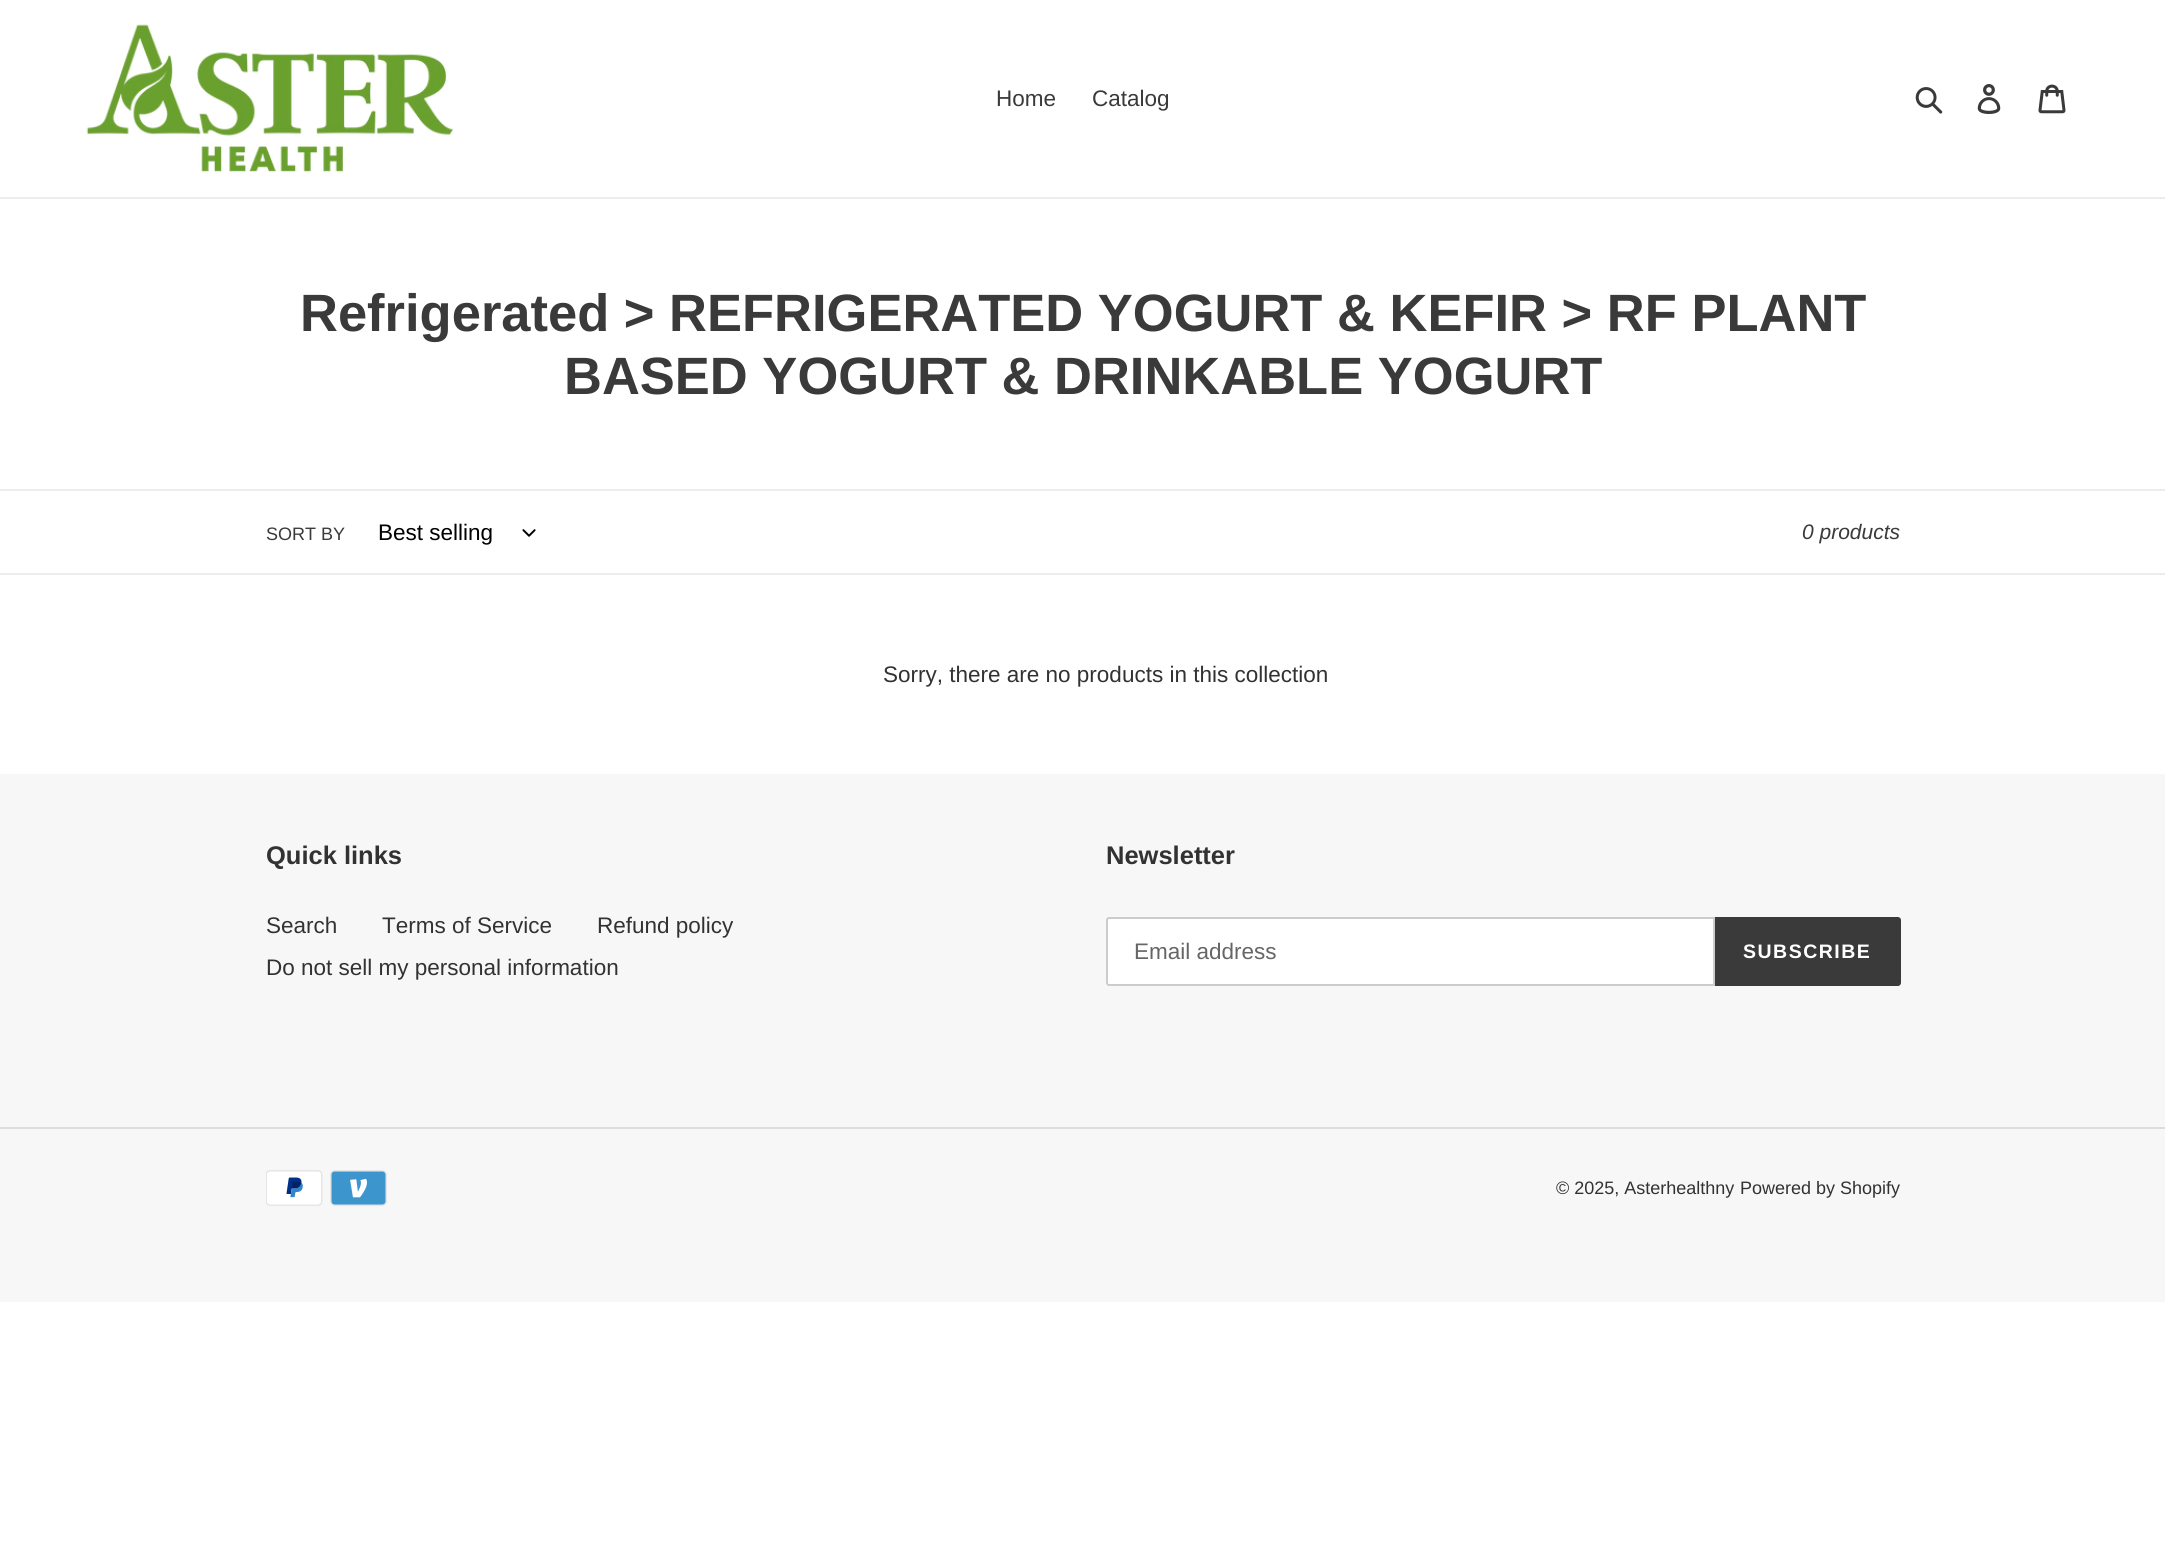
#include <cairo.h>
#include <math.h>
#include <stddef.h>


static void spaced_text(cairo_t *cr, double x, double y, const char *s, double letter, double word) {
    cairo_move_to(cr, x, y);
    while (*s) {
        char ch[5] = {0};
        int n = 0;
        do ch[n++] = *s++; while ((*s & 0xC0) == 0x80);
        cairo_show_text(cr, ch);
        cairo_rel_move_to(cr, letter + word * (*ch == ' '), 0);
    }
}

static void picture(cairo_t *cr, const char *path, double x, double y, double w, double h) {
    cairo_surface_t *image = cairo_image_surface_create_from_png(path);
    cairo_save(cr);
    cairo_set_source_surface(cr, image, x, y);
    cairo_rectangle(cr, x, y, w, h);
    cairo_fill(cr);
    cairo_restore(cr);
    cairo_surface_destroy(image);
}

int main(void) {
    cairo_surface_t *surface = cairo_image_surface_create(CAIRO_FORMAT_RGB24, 2165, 1563);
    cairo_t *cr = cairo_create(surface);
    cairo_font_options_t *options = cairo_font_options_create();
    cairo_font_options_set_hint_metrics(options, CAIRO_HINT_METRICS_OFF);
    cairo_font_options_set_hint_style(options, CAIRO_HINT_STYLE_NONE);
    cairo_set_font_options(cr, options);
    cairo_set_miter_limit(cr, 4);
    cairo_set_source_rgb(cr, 1, 1, 1);
    cairo_paint(cr);
    cairo_set_source_rgb(cr, 0.922, 0.922, 0.922);
    cairo_rectangle(cr, 0, 197, 2165, 2);
    cairo_fill(cr);
    picture(cr, "img1.png", 86, 24, 368, 148);
    cairo_select_font_face(cr, "Liberation Sans", CAIRO_FONT_SLANT_NORMAL, CAIRO_FONT_WEIGHT_NORMAL);
    cairo_set_font_size(cr, 22.5);
    cairo_set_source_rgb(cr, 0.227, 0.227, 0.227);
    cairo_move_to(cr, 996, 106);
    cairo_show_text(cr, "Home");
    cairo_move_to(cr, 1092, 106);
    cairo_show_text(cr, "Catalog");
    picture(cr, "img2.png", 1915, 87, 28, 27);
    picture(cr, "img3.png", 1977, 84, 24, 30);
    picture(cr, "img4.png", 2038, 84, 28, 30);
    cairo_select_font_face(cr, "Liberation Sans", CAIRO_FONT_SLANT_NORMAL, CAIRO_FONT_WEIGHT_BOLD);
    cairo_set_font_size(cr, 52.5);
    cairo_move_to(cr, 300, 331);
    cairo_show_text(cr, "Refrigerated > REFRIGERATED YOGURT & KEFIR > RF PLANT");
    cairo_move_to(cr, 564, 394);
    cairo_show_text(cr, "BASED YOGURT & DRINKABLE YOGURT");
    cairo_set_source_rgb(cr, 0.922, 0.922, 0.922);
    cairo_rectangle(cr, 0, 489, 2165, 2);
    cairo_fill(cr);
    cairo_rectangle(cr, 0, 573, 2165, 2);
    cairo_fill(cr);
    cairo_select_font_face(cr, "Liberation Sans", CAIRO_FONT_SLANT_NORMAL, CAIRO_FONT_WEIGHT_NORMAL);
    cairo_set_font_size(cr, 18);
    cairo_set_source_rgb(cr, 0.227, 0.227, 0.227);
    cairo_move_to(cr, 266, 540);
    cairo_show_text(cr, "SORT BY");
    cairo_set_font_size(cr, 22.5);
    cairo_set_source_rgb(cr, 0, 0, 0);
    cairo_move_to(cr, 378, 540);
    cairo_show_text(cr, "Best selling");
    picture(cr, "img5.png", 522, 529, 14, 8);
    cairo_select_font_face(cr, "Liberation Sans", CAIRO_FONT_SLANT_ITALIC, CAIRO_FONT_WEIGHT_NORMAL);
    cairo_set_font_size(cr, 21);
    cairo_set_source_rgb(cr, 0.227, 0.227, 0.227);
    cairo_move_to(cr, 1802, 539);
    cairo_show_text(cr, "0 products");
    cairo_select_font_face(cr, "Liberation Sans", CAIRO_FONT_SLANT_NORMAL, CAIRO_FONT_WEIGHT_NORMAL);
    cairo_set_font_size(cr, 22.5);
    cairo_set_source_rgb(cr, 0.2, 0.196, 0.196);
    cairo_move_to(cr, 883, 682);
    cairo_show_text(cr, "Sorry, there are no products in this collection");
    cairo_set_source_rgb(cr, 0.965, 0.965, 0.965);
    cairo_rectangle(cr, 0, 774, 2165, 528);
    cairo_fill(cr);
    cairo_select_font_face(cr, "Liberation Sans", CAIRO_FONT_SLANT_NORMAL, CAIRO_FONT_WEIGHT_BOLD);
    cairo_set_font_size(cr, 25.5);
    cairo_set_source_rgb(cr, 0.2, 0.196, 0.196);
    cairo_move_to(cr, 266, 864);
    cairo_show_text(cr, "Quick links");
    cairo_select_font_face(cr, "Liberation Sans", CAIRO_FONT_SLANT_NORMAL, CAIRO_FONT_WEIGHT_NORMAL);
    cairo_set_font_size(cr, 22.5);
    cairo_move_to(cr, 266, 933);
    cairo_show_text(cr, "Search");
    cairo_move_to(cr, 382, 933);
    cairo_show_text(cr, "Terms of Service");
    cairo_move_to(cr, 597, 933);
    cairo_show_text(cr, "Refund policy");
    cairo_move_to(cr, 266, 975);
    cairo_show_text(cr, "Do not sell my personal information");
    cairo_select_font_face(cr, "Liberation Sans", CAIRO_FONT_SLANT_NORMAL, CAIRO_FONT_WEIGHT_BOLD);
    cairo_set_font_size(cr, 25.5);
    cairo_move_to(cr, 1106, 864);
    cairo_show_text(cr, "Newsletter");
    cairo_set_source_rgb(cr, 1, 1, 1);
    cairo_new_path(cr);
    cairo_move_to(cr, 1109, 918);
    cairo_line_to(cr, 1714, 918);
    cairo_line_to(cr, 1714, 985);
    cairo_line_to(cr, 1109, 985);
    cairo_curve_to(cr, 1108, 985, 1107, 984, 1107, 983);
    cairo_line_to(cr, 1107, 920);
    cairo_curve_to(cr, 1107, 919, 1108, 918, 1109, 918);
    cairo_close_path(cr);
    cairo_fill_preserve(cr);
    cairo_set_source_rgb(cr, 0.8, 0.8, 0.8);
    cairo_stroke(cr);
    cairo_select_font_face(cr, "Liberation Sans", CAIRO_FONT_SLANT_NORMAL, CAIRO_FONT_WEIGHT_NORMAL);
    cairo_set_font_size(cr, 22.5);
    cairo_set_source_rgb(cr, 0.4, 0.4, 0.4);
    cairo_move_to(cr, 1134, 959);
    cairo_show_text(cr, "Email address");
    cairo_set_source_rgb(cr, 0.227, 0.227, 0.227);
    cairo_new_path(cr);
    cairo_move_to(cr, 1715, 917);
    cairo_line_to(cr, 1898, 917);
    cairo_curve_to(cr, 1899.5, 917, 1901, 918.5, 1901, 920);
    cairo_line_to(cr, 1901, 983);
    cairo_curve_to(cr, 1901, 984.5, 1899.5, 986, 1898, 986);
    cairo_line_to(cr, 1715, 986);
    cairo_close_path(cr);
    cairo_fill(cr);
    cairo_select_font_face(cr, "Liberation Sans", CAIRO_FONT_SLANT_NORMAL, CAIRO_FONT_WEIGHT_BOLD);
    cairo_set_font_size(cr, 19.5);
    cairo_set_source_rgb(cr, 1, 1, 1);
    spaced_text(cr, 1743, 958, "SUBSCRIBE", 1.5, 0);
    cairo_set_source_rgb(cr, 0.867, 0.867, 0.867);
    cairo_rectangle(cr, 0, 1127, 2165, 2);
    cairo_fill(cr);
    picture(cr, "img6.png", 266, 1170, 57, 36);
    picture(cr, "img7.png", 330, 1170, 57, 36);
    cairo_select_font_face(cr, "Liberation Sans", CAIRO_FONT_SLANT_NORMAL, CAIRO_FONT_WEIGHT_NORMAL);
    cairo_set_font_size(cr, 18);
    cairo_set_source_rgb(cr, 0.2, 0.196, 0.196);
    cairo_move_to(cr, 1556, 1194);
    cairo_show_text(cr, "© 2025, Asterhealthny");
    cairo_move_to(cr, 1740, 1194);
    cairo_show_text(cr, "Powered by Shopify");
    cairo_surface_write_to_png(surface, "page.png");
    cairo_font_options_destroy(options);
    cairo_destroy(cr);
    cairo_surface_destroy(surface);
    return 0;
}
